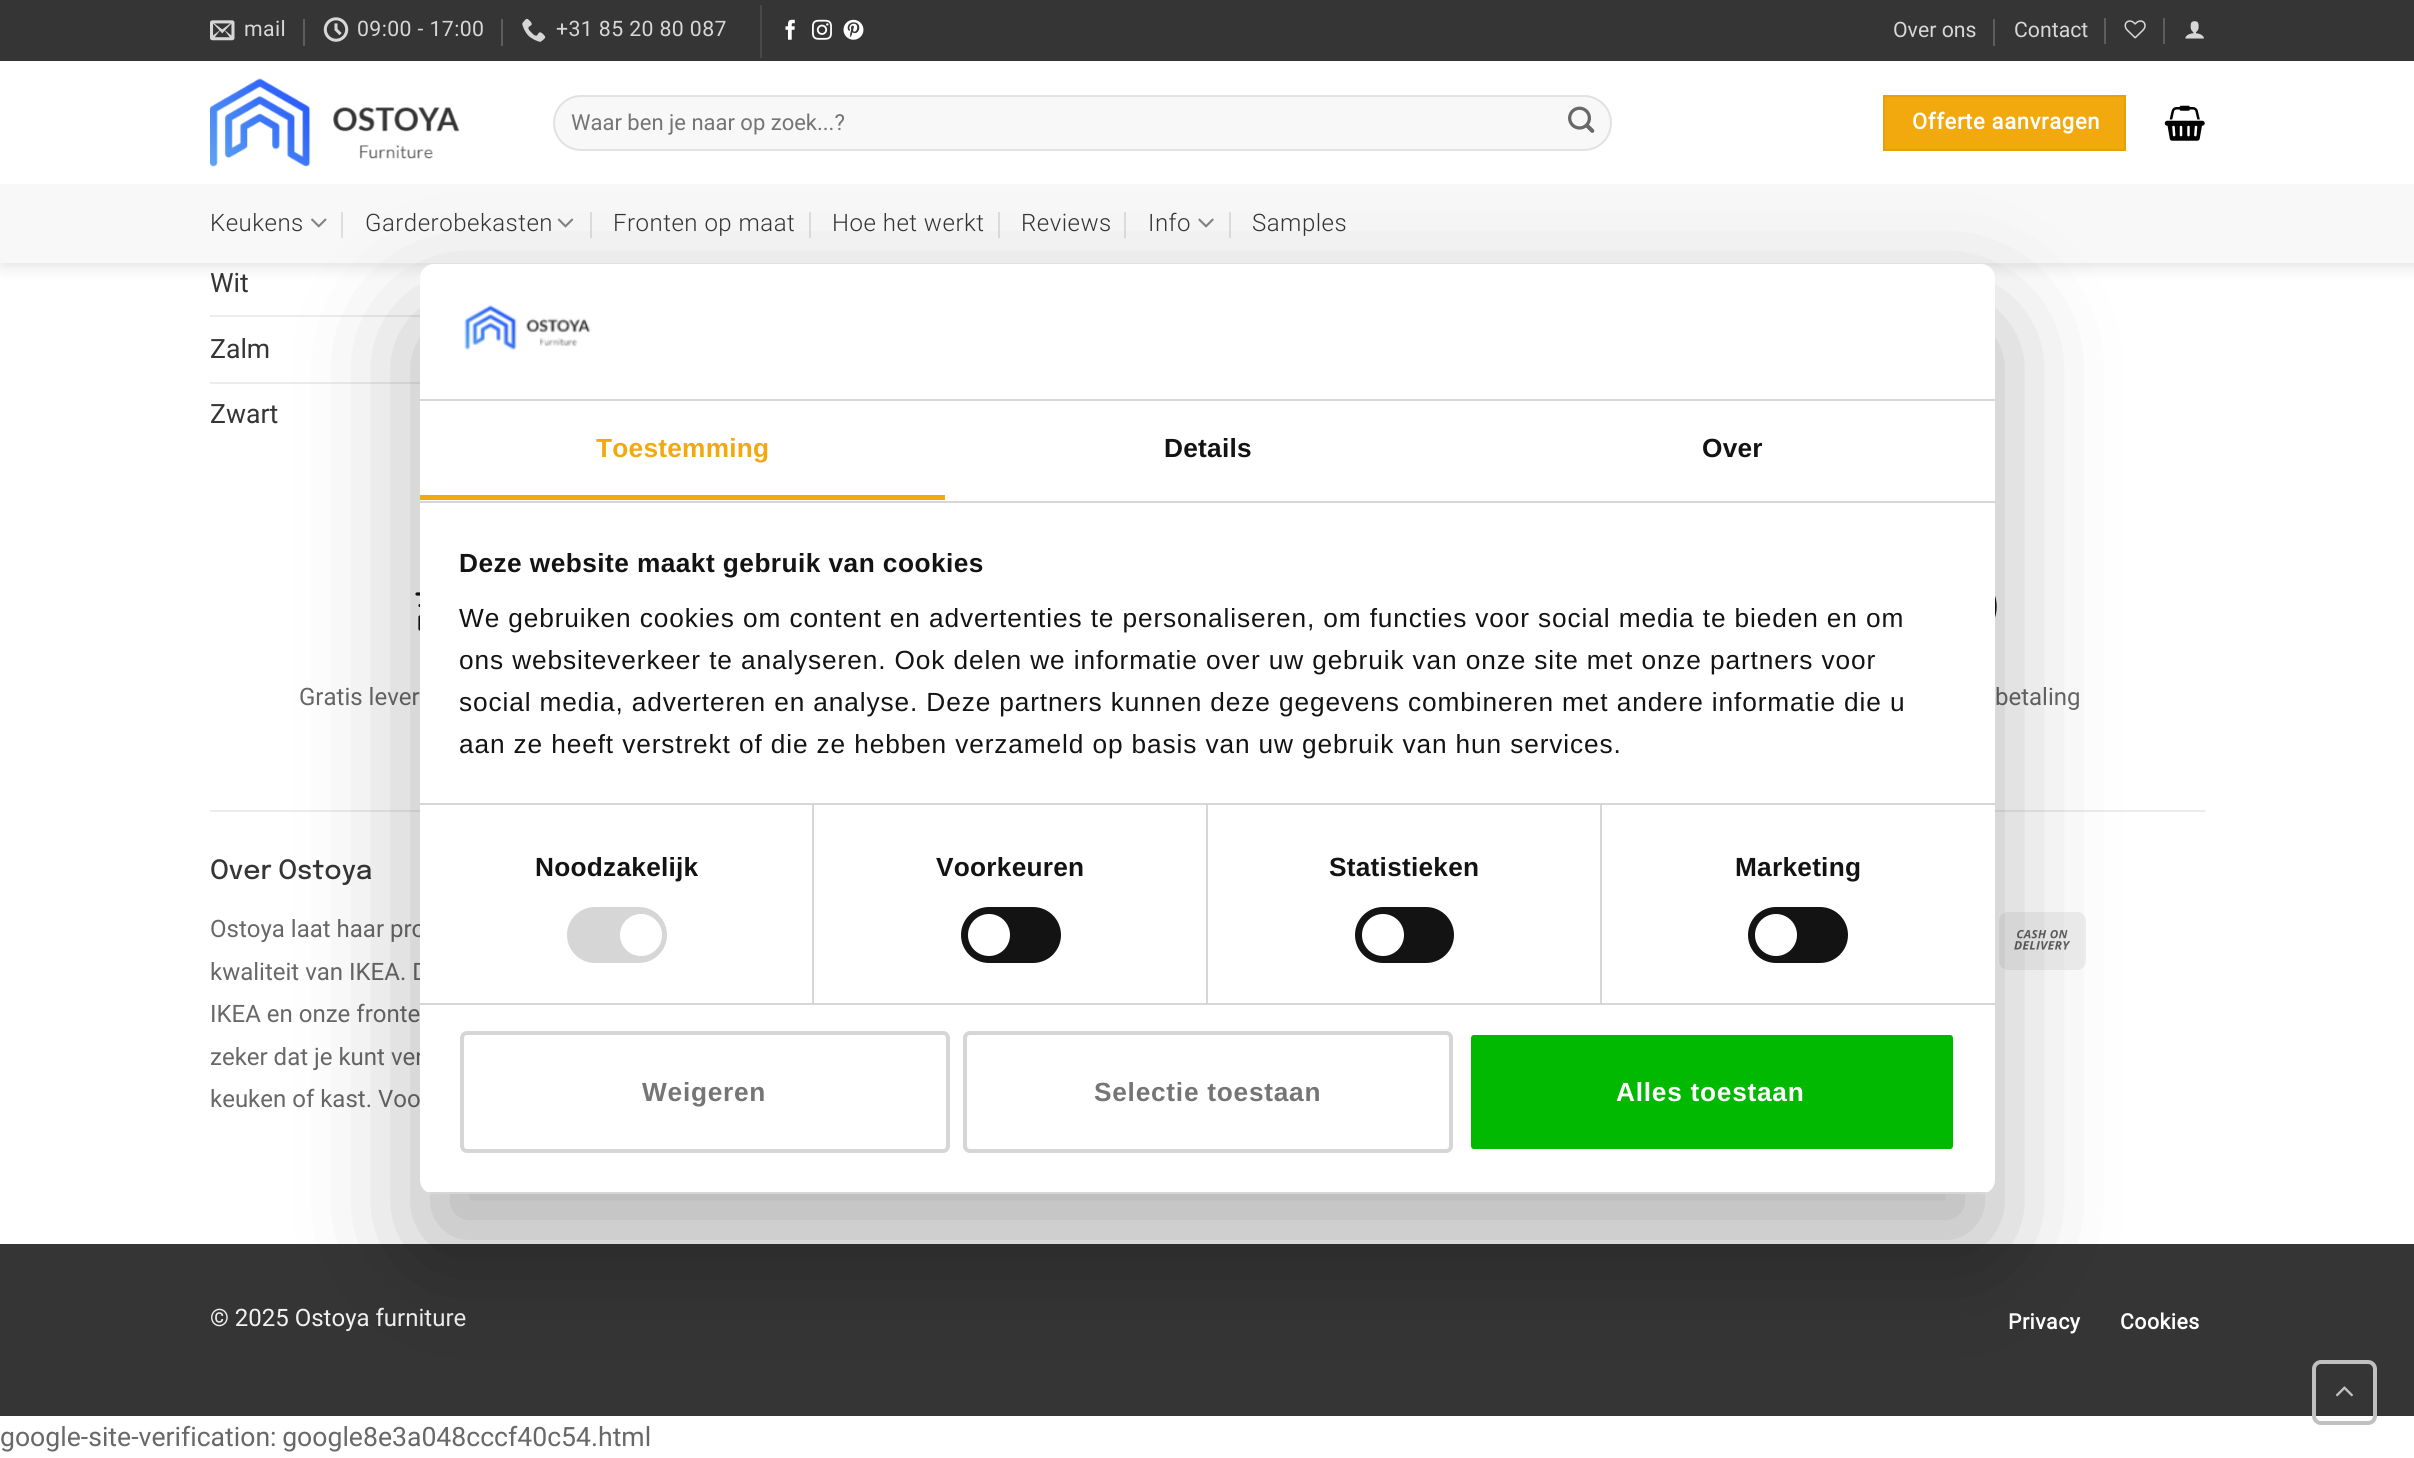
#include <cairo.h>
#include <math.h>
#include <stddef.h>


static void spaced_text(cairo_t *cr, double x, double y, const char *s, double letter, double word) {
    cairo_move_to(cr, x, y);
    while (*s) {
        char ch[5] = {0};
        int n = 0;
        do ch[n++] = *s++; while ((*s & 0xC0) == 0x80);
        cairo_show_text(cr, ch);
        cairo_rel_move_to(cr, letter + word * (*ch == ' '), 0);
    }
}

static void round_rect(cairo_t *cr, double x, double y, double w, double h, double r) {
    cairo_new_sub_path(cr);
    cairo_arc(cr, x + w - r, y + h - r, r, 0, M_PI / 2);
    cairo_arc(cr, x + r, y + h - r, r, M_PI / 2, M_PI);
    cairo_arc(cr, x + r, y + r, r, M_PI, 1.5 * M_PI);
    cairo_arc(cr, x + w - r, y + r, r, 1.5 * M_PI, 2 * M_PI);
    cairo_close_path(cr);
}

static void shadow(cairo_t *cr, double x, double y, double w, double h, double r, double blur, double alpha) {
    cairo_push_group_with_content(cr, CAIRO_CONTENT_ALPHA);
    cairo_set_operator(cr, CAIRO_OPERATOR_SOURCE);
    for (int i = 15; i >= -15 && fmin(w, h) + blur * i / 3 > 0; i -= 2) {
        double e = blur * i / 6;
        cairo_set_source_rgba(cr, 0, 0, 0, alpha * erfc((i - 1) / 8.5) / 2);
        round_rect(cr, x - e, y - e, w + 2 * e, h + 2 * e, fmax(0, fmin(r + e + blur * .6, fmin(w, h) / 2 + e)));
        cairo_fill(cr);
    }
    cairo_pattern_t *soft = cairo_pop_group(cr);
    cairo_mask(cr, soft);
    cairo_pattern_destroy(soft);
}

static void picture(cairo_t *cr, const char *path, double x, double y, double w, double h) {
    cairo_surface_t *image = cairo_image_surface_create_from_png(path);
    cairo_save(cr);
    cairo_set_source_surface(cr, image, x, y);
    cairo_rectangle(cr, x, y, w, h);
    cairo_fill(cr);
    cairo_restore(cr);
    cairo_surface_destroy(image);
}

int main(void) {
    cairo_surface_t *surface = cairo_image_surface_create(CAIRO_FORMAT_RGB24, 2414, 1458);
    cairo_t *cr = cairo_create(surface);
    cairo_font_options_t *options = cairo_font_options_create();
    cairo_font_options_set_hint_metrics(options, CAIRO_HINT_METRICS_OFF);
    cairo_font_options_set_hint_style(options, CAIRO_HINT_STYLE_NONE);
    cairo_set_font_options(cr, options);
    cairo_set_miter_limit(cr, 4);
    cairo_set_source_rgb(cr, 1, 1, 1);
    cairo_paint(cr);
    cairo_set_source_rgb(cr, 0, 0, 0);
    shadow(cr, 2, 2, 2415, 262, 0, 9, 0.15);
    cairo_set_source_rgb(cr, 0.208, 0.208, 0.208);
    cairo_rectangle(cr, 0, 0, 2414, 61);
    cairo_fill(cr);
    picture(cr, "img1.png", 210, 20, 25, 21);
    cairo_select_font_face(cr, "Roboto", CAIRO_FONT_SLANT_NORMAL, CAIRO_FONT_WEIGHT_NORMAL);
    cairo_set_font_size(cr, 21.25);
    cairo_set_source_rgb(cr, 0.843, 0.843, 0.843);
    spaced_text(cr, 244, 36, "mail", 0.4, 0);
    cairo_set_source_rgb(cr, 0.365, 0.365, 0.365);
    cairo_rectangle(cr, 303, 19, 2, 27);
    cairo_fill(cr);
    picture(cr, "img2.png", 323, 17, 26, 25);
    cairo_set_source_rgb(cr, 0.843, 0.843, 0.843);
    spaced_text(cr, 357, 36, "09:00 - 17:00", 0.4, 0);
    cairo_set_source_rgb(cr, 0.365, 0.365, 0.365);
    cairo_rectangle(cr, 501, 19, 2, 27);
    cairo_fill(cr);
    picture(cr, "img3.png", 522, 18, 24, 24);
    cairo_set_source_rgb(cr, 0.843, 0.843, 0.843);
    spaced_text(cr, 556, 36, "+31 85 20 80 087", 0.4, 0);
    cairo_set_source_rgb(cr, 0.286, 0.286, 0.286);
    cairo_rectangle(cr, 760, 5, 2, 53);
    cairo_fill(cr);
    picture(cr, "img4.png", 785, 19, 10, 21);
    picture(cr, "img5.png", 812, 19, 20, 21);
    picture(cr, "img6.png", 843, 19, 21, 21);
    cairo_set_source_rgb(cr, 0.843, 0.843, 0.843);
    cairo_move_to(cr, 1893, 37);
    cairo_show_text(cr, "Over ons");
    cairo_set_source_rgb(cr, 0.365, 0.365, 0.365);
    cairo_rectangle(cr, 1993, 19, 2, 27);
    cairo_fill(cr);
    cairo_set_source_rgb(cr, 0.843, 0.843, 0.843);
    cairo_move_to(cr, 2014, 37);
    cairo_show_text(cr, "Contact");
    cairo_set_source_rgb(cr, 0.365, 0.365, 0.365);
    cairo_rectangle(cr, 2104, 18, 2, 26);
    cairo_fill(cr);
    picture(cr, "img7.png", 2124, 20, 22, 19);
    cairo_rectangle(cr, 2163, 18, 2, 26);
    cairo_fill(cr);
    picture(cr, "img8.png", 2185, 21, 19, 18);
    cairo_set_source_rgb(cr, 1, 1, 1);
    cairo_rectangle(cr, 0, 61, 2414, 123);
    cairo_fill(cr);
    picture(cr, "img9.png", 210, 78, 250, 89);
    cairo_set_source_rgb(cr, 0.969, 0.969, 0.969);
    round_rect(cr, 553, 95, 1059, 56, 28);
    cairo_fill(cr);
    round_rect(cr, 554, 96, 1057, 54, 27);
    cairo_set_source_rgba(cr, 0, 0, 0, 0.09);
    cairo_stroke(cr);
    cairo_set_font_size(cr, 22);
    cairo_set_source_rgb(cr, 0.459, 0.459, 0.459);
    cairo_move_to(cr, 571, 130);
    cairo_show_text(cr, "Waar ben je naar op zoek...?");
    picture(cr, "img10.png", 1568, 106, 27, 27);
    cairo_set_source_rgb(cr, 0.945, 0.663, 0.055);
    cairo_rectangle(cr, 1884, 96, 241, 54);
    cairo_fill_preserve(cr);
    cairo_set_source_rgb(cr, 0.898, 0.631, 0.051);
    cairo_stroke(cr);
    cairo_select_font_face(cr, "Roboto", CAIRO_FONT_SLANT_NORMAL, CAIRO_FONT_WEIGHT_BOLD);
    cairo_set_source_rgb(cr, 1, 1, 1);
    spaced_text(cr, 1912, 129, "Offerte aanvragen", 0.7, 0);
    picture(cr, "img11.png", 2164, 105, 41, 36);
    cairo_set_source_rgb(cr, 0.969, 0.969, 0.969);
    cairo_rectangle(cr, 0, 184, 2414, 79);
    cairo_fill(cr);
    cairo_select_font_face(cr, "Roboto Light", CAIRO_FONT_SLANT_NORMAL, CAIRO_FONT_WEIGHT_NORMAL);
    cairo_set_font_size(cr, 24);
    cairo_set_source_rgb(cr, 0.208, 0.208, 0.208);
    spaced_text(cr, 210, 231, "Keukens", 0.5, 0);
    picture(cr, "img12.png", 311, 218, 16, 10);
    cairo_set_source_rgb(cr, 0.871, 0.871, 0.871);
    cairo_rectangle(cr, 341, 212, 2, 26);
    cairo_fill(cr);
    cairo_set_source_rgb(cr, 0.208, 0.208, 0.208);
    spaced_text(cr, 365, 231, "Garderobekasten", 0.5, 0);
    picture(cr, "img13.png", 557, 218, 17, 10);
    cairo_set_source_rgb(cr, 0.871, 0.871, 0.871);
    cairo_rectangle(cr, 590, 212, 2, 26);
    cairo_fill(cr);
    cairo_set_source_rgb(cr, 0.208, 0.208, 0.208);
    spaced_text(cr, 613, 231, "Fronten op maat", 0.5, 0);
    cairo_set_source_rgb(cr, 0.871, 0.871, 0.871);
    cairo_rectangle(cr, 809, 212, 2, 26);
    cairo_fill(cr);
    cairo_set_source_rgb(cr, 0.208, 0.208, 0.208);
    spaced_text(cr, 832, 231, "Hoe het werkt", 0.5, 0);
    cairo_set_source_rgb(cr, 0.871, 0.871, 0.871);
    cairo_rectangle(cr, 998, 212, 2, 26);
    cairo_fill(cr);
    cairo_set_source_rgb(cr, 0.208, 0.208, 0.208);
    spaced_text(cr, 1021, 231, "Reviews", 0.5, 0);
    cairo_set_source_rgb(cr, 0.871, 0.871, 0.871);
    cairo_rectangle(cr, 1124, 212, 2, 26);
    cairo_fill(cr);
    cairo_set_source_rgb(cr, 0.208, 0.208, 0.208);
    spaced_text(cr, 1148, 231, "Info", 0.5, 0);
    picture(cr, "img14.png", 1198, 218, 16, 10);
    cairo_set_source_rgb(cr, 0.871, 0.871, 0.871);
    cairo_rectangle(cr, 1229, 212, 2, 26);
    cairo_fill(cr);
    cairo_set_source_rgb(cr, 0.208, 0.208, 0.208);
    spaced_text(cr, 1252, 231, "Samples", 0.5, 0);
    cairo_select_font_face(cr, "Roboto", CAIRO_FONT_SLANT_NORMAL, CAIRO_FONT_WEIGHT_NORMAL);
    cairo_set_font_size(cr, 26.6);
    cairo_move_to(cr, 210, 292);
    cairo_show_text(cr, "Wit");
    cairo_set_source_rgb(cr, 0.925, 0.925, 0.925);
    cairo_rectangle(cr, 210, 315, 210, 2);
    cairo_fill(cr);
    cairo_set_source_rgb(cr, 0.208, 0.208, 0.208);
    cairo_move_to(cr, 210, 358);
    cairo_show_text(cr, "Zalm");
    cairo_set_source_rgb(cr, 0.925, 0.925, 0.925);
    cairo_rectangle(cr, 210, 382, 210, 2);
    cairo_fill(cr);
    cairo_set_source_rgb(cr, 0.208, 0.208, 0.208);
    cairo_move_to(cr, 210, 423);
    cairo_show_text(cr, "Zwart");
    cairo_new_path(cr);
    cairo_move_to(cr, 426, 629);
    cairo_line_to(cr, 420, 629);
    cairo_line_to(cr, 420, 617);
    cairo_move_to(cr, 417, 594);
    cairo_line_to(cr, 449, 594);
    cairo_line_to(cr, 449, 629);
    cairo_move_to(cr, 437.5, 629);
    cairo_line_to(cr, 455, 629);
    cairo_move_to(cr, 466.5, 629);
    cairo_line_to(cr, 472.5, 629);
    cairo_line_to(cr, 472.5, 611.5);
    cairo_line_to(cr, 449, 611.5);
    cairo_move_to(cr, 449, 596.5);
    cairo_line_to(cr, 463.5, 596.5);
    cairo_line_to(cr, 472.5, 611.5);
    cairo_move_to(cr, 420, 605.5);
    cairo_line_to(cr, 431.5, 605.5);
    cairo_set_source_rgb(cr, 0.078, 0.078, 0.078);
    cairo_set_line_width(cr, 3.2);
    cairo_set_line_cap(cr, CAIRO_LINE_CAP_ROUND);
    cairo_set_line_join(cr, CAIRO_LINE_JOIN_ROUND);
    cairo_stroke(cr);
    cairo_set_font_size(cr, 24);
    cairo_set_source_rgb(cr, 0.408, 0.408, 0.408);
    cairo_move_to(cr, 299, 705);
    cairo_show_text(cr, "Gratis lever");
    picture(cr, "img15.png", 1995, 596, 2, 22);
    cairo_move_to(cr, 1995, 705);
    cairo_show_text(cr, "betaling");
    cairo_set_source_rgb(cr, 0.925, 0.925, 0.925);
    cairo_rectangle(cr, 210, 810, 1995, 2);
    cairo_fill(cr);
    cairo_select_font_face(cr, "Epilogue Medium", CAIRO_FONT_SLANT_NORMAL, CAIRO_FONT_WEIGHT_NORMAL);
    cairo_set_font_size(cr, 26.6);
    cairo_set_source_rgb(cr, 0.208, 0.208, 0.208);
    cairo_move_to(cr, 210, 879);
    cairo_show_text(cr, "Over Ostoya");
    cairo_select_font_face(cr, "Roboto", CAIRO_FONT_SLANT_NORMAL, CAIRO_FONT_WEIGHT_NORMAL);
    cairo_set_font_size(cr, 24);
    cairo_set_source_rgb(cr, 0.408, 0.408, 0.408);
    cairo_move_to(cr, 210, 937);
    cairo_show_text(cr, "Ostoya laat haar pro");
    cairo_move_to(cr, 210, 980);
    cairo_show_text(cr, "kwaliteit van IKEA. D");
    cairo_move_to(cr, 210, 1022);
    cairo_show_text(cr, "IKEA en onze fronte");
    cairo_move_to(cr, 210, 1065);
    cairo_show_text(cr, "zeker dat je kunt ver");
    cairo_move_to(cr, 210, 1107);
    cairo_show_text(cr, "keuken of kast. Voo");
    cairo_set_source_rgb(cr, 0.941, 0.941, 0.941);
    round_rect(cr, 1999, 912, 87, 58, 9);
    cairo_fill(cr);
    picture(cr, "img16.png", 2014, 930, 57, 20);
    cairo_set_source_rgb(cr, 0.208, 0.208, 0.208);
    cairo_rectangle(cr, 0, 1244, 2414, 172);
    cairo_fill(cr);
    cairo_set_source_rgb(cr, 0.945, 0.945, 0.945);
    cairo_move_to(cr, 210, 1326);
    cairo_show_text(cr, "© 2025 Ostoya furniture");
    cairo_select_font_face(cr, "Roboto", CAIRO_FONT_SLANT_NORMAL, CAIRO_FONT_WEIGHT_BOLD);
    cairo_set_font_size(cr, 21.25);
    cairo_set_source_rgb(cr, 1, 1, 1);
    spaced_text(cr, 2008, 1329, "Privacy", 0.5, 0);
    spaced_text(cr, 2120, 1329, "Cookies", 0.5, 0);
    round_rect(cr, 2314, 1362, 61, 61, 7);
    cairo_set_source_rgb(cr, 0.753, 0.753, 0.753);
    cairo_set_line_width(cr, 4);
    cairo_set_line_cap(cr, CAIRO_LINE_CAP_BUTT);
    cairo_set_line_join(cr, CAIRO_LINE_JOIN_MITER);
    cairo_stroke(cr);
    picture(cr, "img17.png", 2335, 1386, 18, 11);
    cairo_set_source_rgb(cr, 0, 0, 0);
    shadow(cr, 420, 320, 1575, 930, 14, 59.5, 0.3);
    cairo_set_source_rgb(cr, 1, 1, 1);
    round_rect(cr, 420, 264, 1575, 930, 14);
    cairo_fill(cr);
    cairo_set_source_rgb(cr, 0.839, 0.839, 0.839);
    cairo_rectangle(cr, 420, 399, 1575, 2);
    cairo_fill(cr);
    picture(cr, "img18.png", 464, 304, 127, 46);
    cairo_rectangle(cr, 420, 501, 1575, 2);
    cairo_fill(cr);
    cairo_set_source_rgb(cr, 0.945, 0.663, 0.055);
    cairo_rectangle(cr, 420, 495, 525, 5);
    cairo_fill(cr);
    cairo_select_font_face(cr, "Liberation Sans", CAIRO_FONT_SLANT_NORMAL, CAIRO_FONT_WEIGHT_BOLD);
    cairo_set_font_size(cr, 26.25);
    spaced_text(cr, 596, 457, "Toestemming", 0.25, 0);
    cairo_set_source_rgb(cr, 0.078, 0.078, 0.078);
    spaced_text(cr, 1164, 457, "Details", 0.25, 0);
    spaced_text(cr, 1702, 457, "Over", 0.25, 0);
    cairo_set_source_rgb(cr, 0.839, 0.839, 0.839);
    cairo_rectangle(cr, 420, 803, 1575, 2);
    cairo_fill(cr);
    cairo_set_source_rgb(cr, 0.078, 0.078, 0.078);
    spaced_text(cr, 459, 572, "Deze website maakt gebruik van cookies", 0.45, 0);
    cairo_select_font_face(cr, "Liberation Sans", CAIRO_FONT_SLANT_NORMAL, CAIRO_FONT_WEIGHT_NORMAL);
    spaced_text(cr, 459, 627, "We gebruiken cookies om content en advertenties te personaliseren, om functies voor social media te bieden en om", 0.88, 0);
    spaced_text(cr, 459, 669, "ons websiteverkeer te analyseren. Ook delen we informatie over uw gebruik van onze site met onze partners voor", 0.88, 0);
    spaced_text(cr, 459, 711, "social media, adverteren en analyse. Deze partners kunnen deze gegevens combineren met andere informatie die u", 0.88, 0);
    spaced_text(cr, 459, 753, "aan ze heeft verstrekt of die ze hebben verzameld op basis van uw gebruik van hun services.", 0.88, 0);
    cairo_set_source_rgb(cr, 0.839, 0.839, 0.839);
    cairo_rectangle(cr, 420, 1003, 1575, 2);
    cairo_fill(cr);
    cairo_rectangle(cr, 812, 805, 2, 198);
    cairo_fill(cr);
    cairo_select_font_face(cr, "Liberation Sans", CAIRO_FONT_SLANT_NORMAL, CAIRO_FONT_WEIGHT_BOLD);
    cairo_set_source_rgb(cr, 0.078, 0.078, 0.078);
    spaced_text(cr, 535, 876, "Noodzakelijk", 0.25, 0);
    cairo_set_source_rgb(cr, 0.839, 0.839, 0.839);
    round_rect(cr, 567, 907, 100, 56, 28);
    cairo_fill(cr);
    cairo_set_source_rgb(cr, 1, 1, 1);
    cairo_arc(cr, 641, 935, 21, 0, 2 * M_PI);
    cairo_fill(cr);
    cairo_set_source_rgb(cr, 0.839, 0.839, 0.839);
    cairo_rectangle(cr, 1206, 805, 2, 198);
    cairo_fill(cr);
    cairo_set_source_rgb(cr, 0.078, 0.078, 0.078);
    spaced_text(cr, 936, 876, "Voorkeuren", 0.25, 0);
    round_rect(cr, 961, 907, 100, 56, 28);
    cairo_fill(cr);
    cairo_set_source_rgb(cr, 1, 1, 1);
    cairo_arc(cr, 989, 935, 21, 0, 2 * M_PI);
    cairo_fill(cr);
    cairo_set_source_rgb(cr, 0.839, 0.839, 0.839);
    cairo_rectangle(cr, 1600, 805, 2, 198);
    cairo_fill(cr);
    cairo_set_source_rgb(cr, 0.078, 0.078, 0.078);
    spaced_text(cr, 1329, 876, "Statistieken", 0.25, 0);
    round_rect(cr, 1355, 907, 99, 56, 28);
    cairo_fill(cr);
    cairo_set_source_rgb(cr, 1, 1, 1);
    cairo_arc(cr, 1383, 935, 21, 0, 2 * M_PI);
    cairo_fill(cr);
    cairo_set_source_rgb(cr, 0.078, 0.078, 0.078);
    spaced_text(cr, 1735, 876, "Marketing", 0.25, 0);
    round_rect(cr, 1748, 907, 100, 56, 28);
    cairo_fill(cr);
    cairo_set_source_rgb(cr, 1, 1, 1);
    cairo_arc(cr, 1776, 935, 21, 0, 2 * M_PI);
    cairo_fill(cr);
    cairo_save(cr);
    round_rect(cr, 420, 264, 1575, 930, 14);
    cairo_clip(cr);
    cairo_set_source_rgb(cr, 0.839, 0.839, 0.839);
    cairo_rectangle(cr, 420, 1192, 1575, 2);
    cairo_fill(cr);
    cairo_restore(cr);
    round_rect(cr, 462, 1033, 486, 118, 5);
    cairo_set_source_rgb(cr, 0.839, 0.839, 0.839);
    cairo_stroke(cr);
    cairo_set_source_rgb(cr, 0.459, 0.459, 0.459);
    spaced_text(cr, 642, 1101, "Weigeren", 0.75, 0);
    round_rect(cr, 965, 1033, 486, 118, 5);
    cairo_set_source_rgb(cr, 0.839, 0.839, 0.839);
    cairo_stroke(cr);
    cairo_set_source_rgb(cr, 0.459, 0.459, 0.459);
    spaced_text(cr, 1094, 1101, "Selectie toestaan", 0.75, 0);
    cairo_set_source_rgb(cr, 0, 0.725, 0);
    round_rect(cr, 1469, 1033, 486, 118, 5);
    cairo_fill_preserve(cr);
    cairo_set_source_rgb(cr, 1, 1, 1);
    cairo_stroke(cr);
    spaced_text(cr, 1616, 1101, "Alles toestaan", 0.75, 0);
    cairo_select_font_face(cr, "Roboto", CAIRO_FONT_SLANT_NORMAL, CAIRO_FONT_WEIGHT_NORMAL);
    cairo_set_font_size(cr, 26.6);
    cairo_set_source_rgb(cr, 0.408, 0.408, 0.408);
    spaced_text(cr, 0, 1446, "google-site-verification: google8e3a048cccf40c54.html", 0, -1);
    cairo_surface_write_to_png(surface, "page.png");
    cairo_font_options_destroy(options);
    cairo_destroy(cr);
    cairo_surface_destroy(surface);
    return 0;
}
